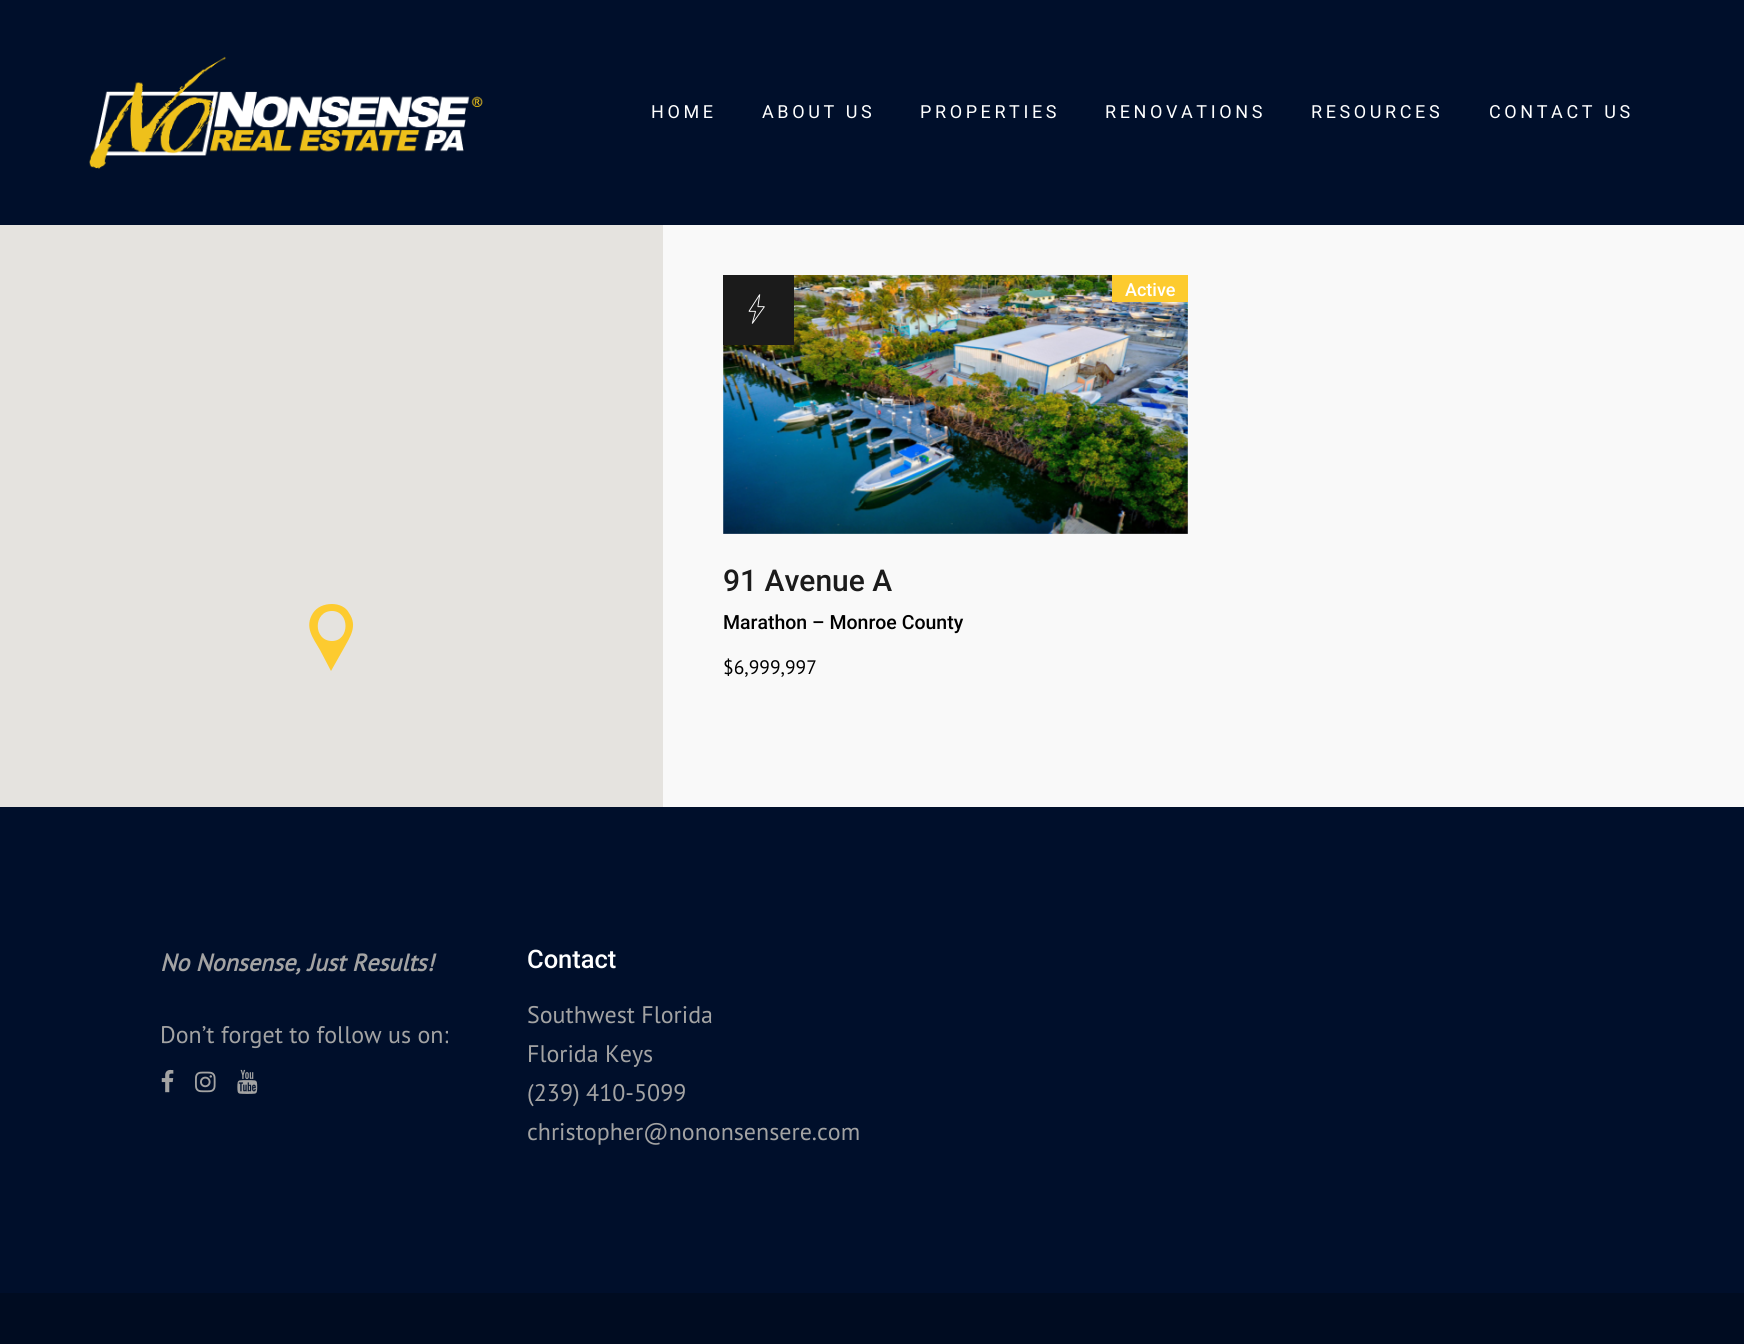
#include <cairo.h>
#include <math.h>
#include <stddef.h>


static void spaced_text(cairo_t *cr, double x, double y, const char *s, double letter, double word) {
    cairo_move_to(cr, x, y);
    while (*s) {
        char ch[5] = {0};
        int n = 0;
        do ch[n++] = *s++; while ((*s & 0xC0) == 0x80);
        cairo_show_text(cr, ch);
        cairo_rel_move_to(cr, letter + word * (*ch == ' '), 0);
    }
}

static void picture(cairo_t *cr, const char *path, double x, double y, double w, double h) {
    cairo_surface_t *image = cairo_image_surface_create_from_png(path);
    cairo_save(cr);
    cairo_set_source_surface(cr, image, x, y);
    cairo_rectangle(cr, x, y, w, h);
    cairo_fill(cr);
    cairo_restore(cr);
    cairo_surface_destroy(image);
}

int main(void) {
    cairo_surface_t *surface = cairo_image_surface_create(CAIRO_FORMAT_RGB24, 1744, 1344);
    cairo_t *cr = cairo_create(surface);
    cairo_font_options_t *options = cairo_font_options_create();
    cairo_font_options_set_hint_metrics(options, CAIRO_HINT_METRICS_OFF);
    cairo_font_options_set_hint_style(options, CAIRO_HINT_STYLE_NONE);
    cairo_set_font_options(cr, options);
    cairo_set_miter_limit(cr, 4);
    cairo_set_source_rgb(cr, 0.976, 0.976, 0.976);
    cairo_paint(cr);
    cairo_set_source_rgb(cr, 0, 0.059, 0.169);
    cairo_rectangle(cr, 0, 0, 1744, 225);
    cairo_fill(cr);
    picture(cr, "img1.png", 89, 56, 394, 113);
    cairo_select_font_face(cr, "Roboto", CAIRO_FONT_SLANT_NORMAL, CAIRO_FONT_WEIGHT_NORMAL);
    cairo_set_font_size(cr, 18);
    cairo_set_source_rgb(cr, 1, 1, 1);
    spaced_text(cr, 651, 118, "HOME", 3.6, 0);
    spaced_text(cr, 762, 118, "ABOUT US", 3.6, 0);
    spaced_text(cr, 920, 118, "PROPERTIES", 3.6, 0);
    spaced_text(cr, 1105, 118, "RENOVATIONS", 3.6, 0);
    spaced_text(cr, 1311, 118, "RESOURCES", 3.6, 0);
    spaced_text(cr, 1489, 118, "CONTACT US", 3.6, 0);
    cairo_set_source_rgb(cr, 0.898, 0.89, 0.875);
    cairo_rectangle(cr, 0, 225, 663, 582);
    cairo_fill(cr);
    cairo_set_source_rgb(cr, 0.992, 0.796, 0.184);
    cairo_new_path(cr);
    cairo_move_to(cr, 332, 604);
    cairo_curve_to(cr, 324, 604, 317, 607, 313, 613);
    cairo_curve_to(cr, 304, 627, 313, 638, 320, 650);
    cairo_line_to(cr, 331, 671);
    cairo_line_to(cr, 344, 648);
    cairo_curve_to(cr, 350, 637, 358, 626, 349, 613);
    cairo_curve_to(cr, 346, 607, 339, 604, 332, 604);
    cairo_close_path(cr);
    cairo_move_to(cr, 332, 641);
    cairo_curve_to(cr, 313, 641, 313, 611, 332, 611);
    cairo_curve_to(cr, 350, 611, 350, 641, 332, 641);
    cairo_close_path(cr);
    cairo_fill(cr);
    picture(cr, "img2.png", 723, 275, 465, 259);
    cairo_set_source_rgb(cr, 0.106, 0.106, 0.106);
    cairo_rectangle(cr, 723, 275, 71, 70);
    cairo_fill(cr);
    picture(cr, "img3.png", 748, 294, 17, 30);
    cairo_set_source_rgb(cr, 0.992, 0.796, 0.184);
    cairo_rectangle(cr, 1112, 275, 76, 27);
    cairo_fill(cr);
    cairo_select_font_face(cr, "Roboto Medium", CAIRO_FONT_SLANT_NORMAL, CAIRO_FONT_WEIGHT_NORMAL);
    cairo_set_source_rgb(cr, 1, 1, 1);
    cairo_move_to(cr, 1125, 296);
    cairo_show_text(cr, "Active");
    cairo_set_font_size(cr, 30);
    cairo_set_source_rgb(cr, 0.106, 0.106, 0.106);
    cairo_move_to(cr, 723, 591);
    cairo_show_text(cr, "91 Avenue A");
    cairo_set_font_size(cr, 19.5);
    cairo_set_source_rgb(cr, 0, 0, 0);
    cairo_move_to(cr, 723, 629);
    cairo_show_text(cr, "Marathon – Monroe County");
    cairo_select_font_face(cr, "PT Sans", CAIRO_FONT_SLANT_NORMAL, CAIRO_FONT_WEIGHT_NORMAL);
    cairo_move_to(cr, 723, 674);
    cairo_show_text(cr, "$6,999,997");
    cairo_set_source_rgb(cr, 0, 0.059, 0.169);
    cairo_rectangle(cr, 0, 807, 1744, 486);
    cairo_fill(cr);
    cairo_select_font_face(cr, "PT Sans", CAIRO_FONT_SLANT_ITALIC, CAIRO_FONT_WEIGHT_BOLD);
    cairo_set_font_size(cr, 24);
    cairo_set_source_rgb(cr, 0.639, 0.639, 0.639);
    cairo_move_to(cr, 160, 971);
    cairo_show_text(cr, "No Nonsense, Just Results!");
    cairo_select_font_face(cr, "PT Sans", CAIRO_FONT_SLANT_NORMAL, CAIRO_FONT_WEIGHT_NORMAL);
    cairo_move_to(cr, 160, 1043);
    cairo_show_text(cr, "Don’t forget to follow us on:");
    picture(cr, "img4.png", 161, 1069, 13, 24);
    picture(cr, "img5.png", 195, 1071, 21, 22);
    picture(cr, "img6.png", 237, 1069, 21, 25);
    cairo_select_font_face(cr, "Roboto Medium", CAIRO_FONT_SLANT_NORMAL, CAIRO_FONT_WEIGHT_NORMAL);
    cairo_set_font_size(cr, 25.5);
    cairo_set_source_rgb(cr, 1, 1, 1);
    cairo_move_to(cr, 527, 968);
    cairo_show_text(cr, "Contact");
    cairo_select_font_face(cr, "PT Sans", CAIRO_FONT_SLANT_NORMAL, CAIRO_FONT_WEIGHT_NORMAL);
    cairo_set_font_size(cr, 24);
    cairo_set_source_rgb(cr, 0.639, 0.639, 0.639);
    cairo_move_to(cr, 527, 1023);
    cairo_show_text(cr, "Southwest Florida");
    cairo_move_to(cr, 527, 1062);
    cairo_show_text(cr, "Florida Keys");
    cairo_move_to(cr, 527, 1101);
    cairo_show_text(cr, "(239) 410-5099");
    cairo_move_to(cr, 527, 1140);
    cairo_show_text(cr, "christopher@nononsensere.com");
    cairo_set_source_rgb(cr, 0, 0.047, 0.129);
    cairo_rectangle(cr, 0, 1293, 1744, 51);
    cairo_fill(cr);
    cairo_surface_write_to_png(surface, "page.png");
    cairo_font_options_destroy(options);
    cairo_destroy(cr);
    cairo_surface_destroy(surface);
    return 0;
}
